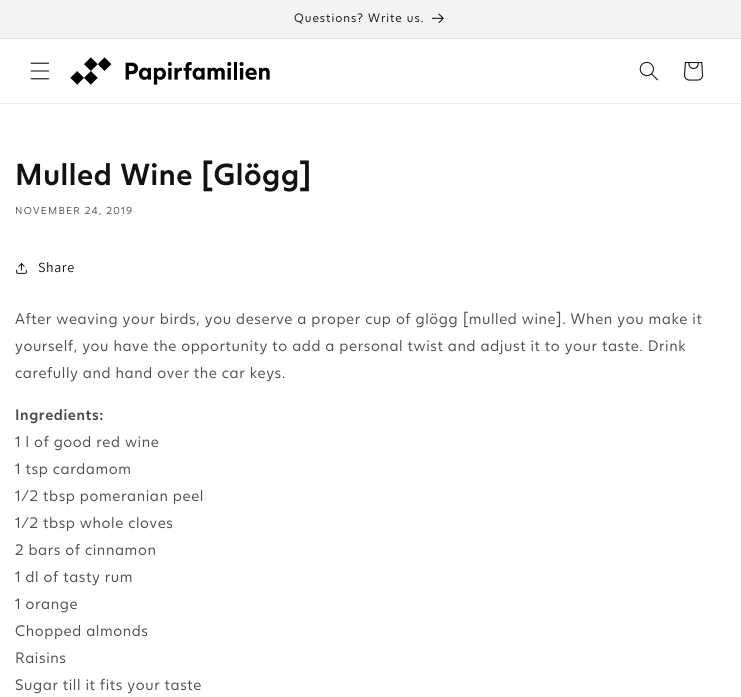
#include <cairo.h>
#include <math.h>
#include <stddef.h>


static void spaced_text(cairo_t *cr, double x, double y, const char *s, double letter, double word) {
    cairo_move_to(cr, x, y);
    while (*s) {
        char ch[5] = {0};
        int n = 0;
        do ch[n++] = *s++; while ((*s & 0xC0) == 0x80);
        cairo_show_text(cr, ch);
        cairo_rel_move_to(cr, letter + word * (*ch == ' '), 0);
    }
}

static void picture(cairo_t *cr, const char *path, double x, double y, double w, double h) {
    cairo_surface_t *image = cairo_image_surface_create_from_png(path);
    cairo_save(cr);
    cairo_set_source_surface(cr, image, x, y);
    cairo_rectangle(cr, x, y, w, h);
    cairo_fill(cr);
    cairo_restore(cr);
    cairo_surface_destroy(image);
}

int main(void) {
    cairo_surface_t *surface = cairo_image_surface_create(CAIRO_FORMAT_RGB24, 741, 697);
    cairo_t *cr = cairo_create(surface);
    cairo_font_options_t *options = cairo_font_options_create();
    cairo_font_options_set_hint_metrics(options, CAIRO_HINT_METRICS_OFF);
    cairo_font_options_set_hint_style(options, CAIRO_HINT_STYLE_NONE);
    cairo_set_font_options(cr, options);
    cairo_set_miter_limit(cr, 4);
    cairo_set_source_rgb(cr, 1, 1, 1);
    cairo_paint(cr);
    cairo_set_source_rgb(cr, 0.953, 0.953, 0.953);
    cairo_rectangle(cr, 0, 0, 741, 38);
    cairo_fill(cr);
    cairo_set_source_rgb(cr, 0.882, 0.882, 0.882);
    cairo_rectangle(cr, 0, 38, 741, 1);
    cairo_fill(cr);
    cairo_select_font_face(cr, "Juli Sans", CAIRO_FONT_SLANT_NORMAL, CAIRO_FONT_WEIGHT_NORMAL);
    cairo_set_font_size(cr, 12);
    cairo_set_source_rgb(cr, 0.071, 0.071, 0.071);
    spaced_text(cr, 294, 22, "Questions? Write us.", 1, 0);
    picture(cr, "img1.png", 432, 13, 12, 10);
    cairo_set_source_rgb(cr, 0.925, 0.925, 0.925);
    cairo_rectangle(cr, 0, 103, 741, 1);
    cairo_fill(cr);
    picture(cr, "img2.png", 30, 62, 20, 18);
    picture(cr, "img3.png", 70, 57, 200, 28);
    picture(cr, "img4.png", 639, 61, 19, 20);
    picture(cr, "img5.png", 684, 62, 20, 19);
    cairo_select_font_face(cr, "Juli Sans Medium", CAIRO_FONT_SLANT_NORMAL, CAIRO_FONT_WEIGHT_NORMAL);
    cairo_set_font_size(cr, 30);
    cairo_set_source_rgb(cr, 0.071, 0.071, 0.071);
    spaced_text(cr, 15, 185, "Mulled Wine [Glögg]", 0.6, 0);
    cairo_select_font_face(cr, "Juli Sans", CAIRO_FONT_SLANT_NORMAL, CAIRO_FONT_WEIGHT_NORMAL);
    cairo_set_font_size(cr, 10);
    cairo_set_source_rgb(cr, 0.302, 0.302, 0.302);
    spaced_text(cr, 15, 214, "NOVEMBER 24, 2019", 1.25, 0);
    picture(cr, "img6.png", 16, 263, 11, 11);
    cairo_select_font_face(cr, "Assistant", CAIRO_FONT_SLANT_NORMAL, CAIRO_FONT_WEIGHT_NORMAL);
    cairo_set_font_size(cr, 14);
    cairo_set_source_rgb(cr, 0.071, 0.071, 0.071);
    spaced_text(cr, 38, 272, "Share", 0.6, 0);
    cairo_select_font_face(cr, "Juli Sans", CAIRO_FONT_SLANT_NORMAL, CAIRO_FONT_WEIGHT_NORMAL);
    cairo_set_font_size(cr, 15);
    cairo_set_source_rgb(cr, 0.302, 0.302, 0.302);
    spaced_text(cr, 15, 324, "After weaving your birds, you deserve a proper cup of glögg [mulled wine]. When you make it", 0.6, 0);
    spaced_text(cr, 15, 351, "yourself, you have the opportunity to add a personal twist and adjust it to your taste. Drink", 0.6, 0);
    spaced_text(cr, 15, 378, "carefully and hand over the car keys.", 0.6, 0);
    cairo_select_font_face(cr, "Juli Sans Medium", CAIRO_FONT_SLANT_NORMAL, CAIRO_FONT_WEIGHT_NORMAL);
    spaced_text(cr, 15, 420, "Ingredients:", 0.6, 0);
    cairo_select_font_face(cr, "Juli Sans", CAIRO_FONT_SLANT_NORMAL, CAIRO_FONT_WEIGHT_NORMAL);
    spaced_text(cr, 15, 447, "1 l of good red wine", 0.6, 0);
    spaced_text(cr, 15, 474, "1 tsp cardamom", 0.6, 0);
    spaced_text(cr, 15, 501, "1/2 tbsp pomeranian peel", 0.6, 0);
    spaced_text(cr, 15, 528, "1/2 tbsp whole cloves", 0.6, 0);
    spaced_text(cr, 15, 555, "2 bars of cinnamon", 0.6, 0);
    spaced_text(cr, 15, 582, "1 dl of tasty rum", 0.6, 0);
    spaced_text(cr, 15, 609, "1 orange", 0.6, 0);
    spaced_text(cr, 15, 636, "Chopped almonds", 0.6, 0);
    spaced_text(cr, 15, 663, "Raisins", 0.6, 0);
    spaced_text(cr, 15, 690, "Sugar till it fits your taste", 0.6, 0);
    cairo_surface_write_to_png(surface, "page.png");
    cairo_font_options_destroy(options);
    cairo_destroy(cr);
    cairo_surface_destroy(surface);
    return 0;
}
